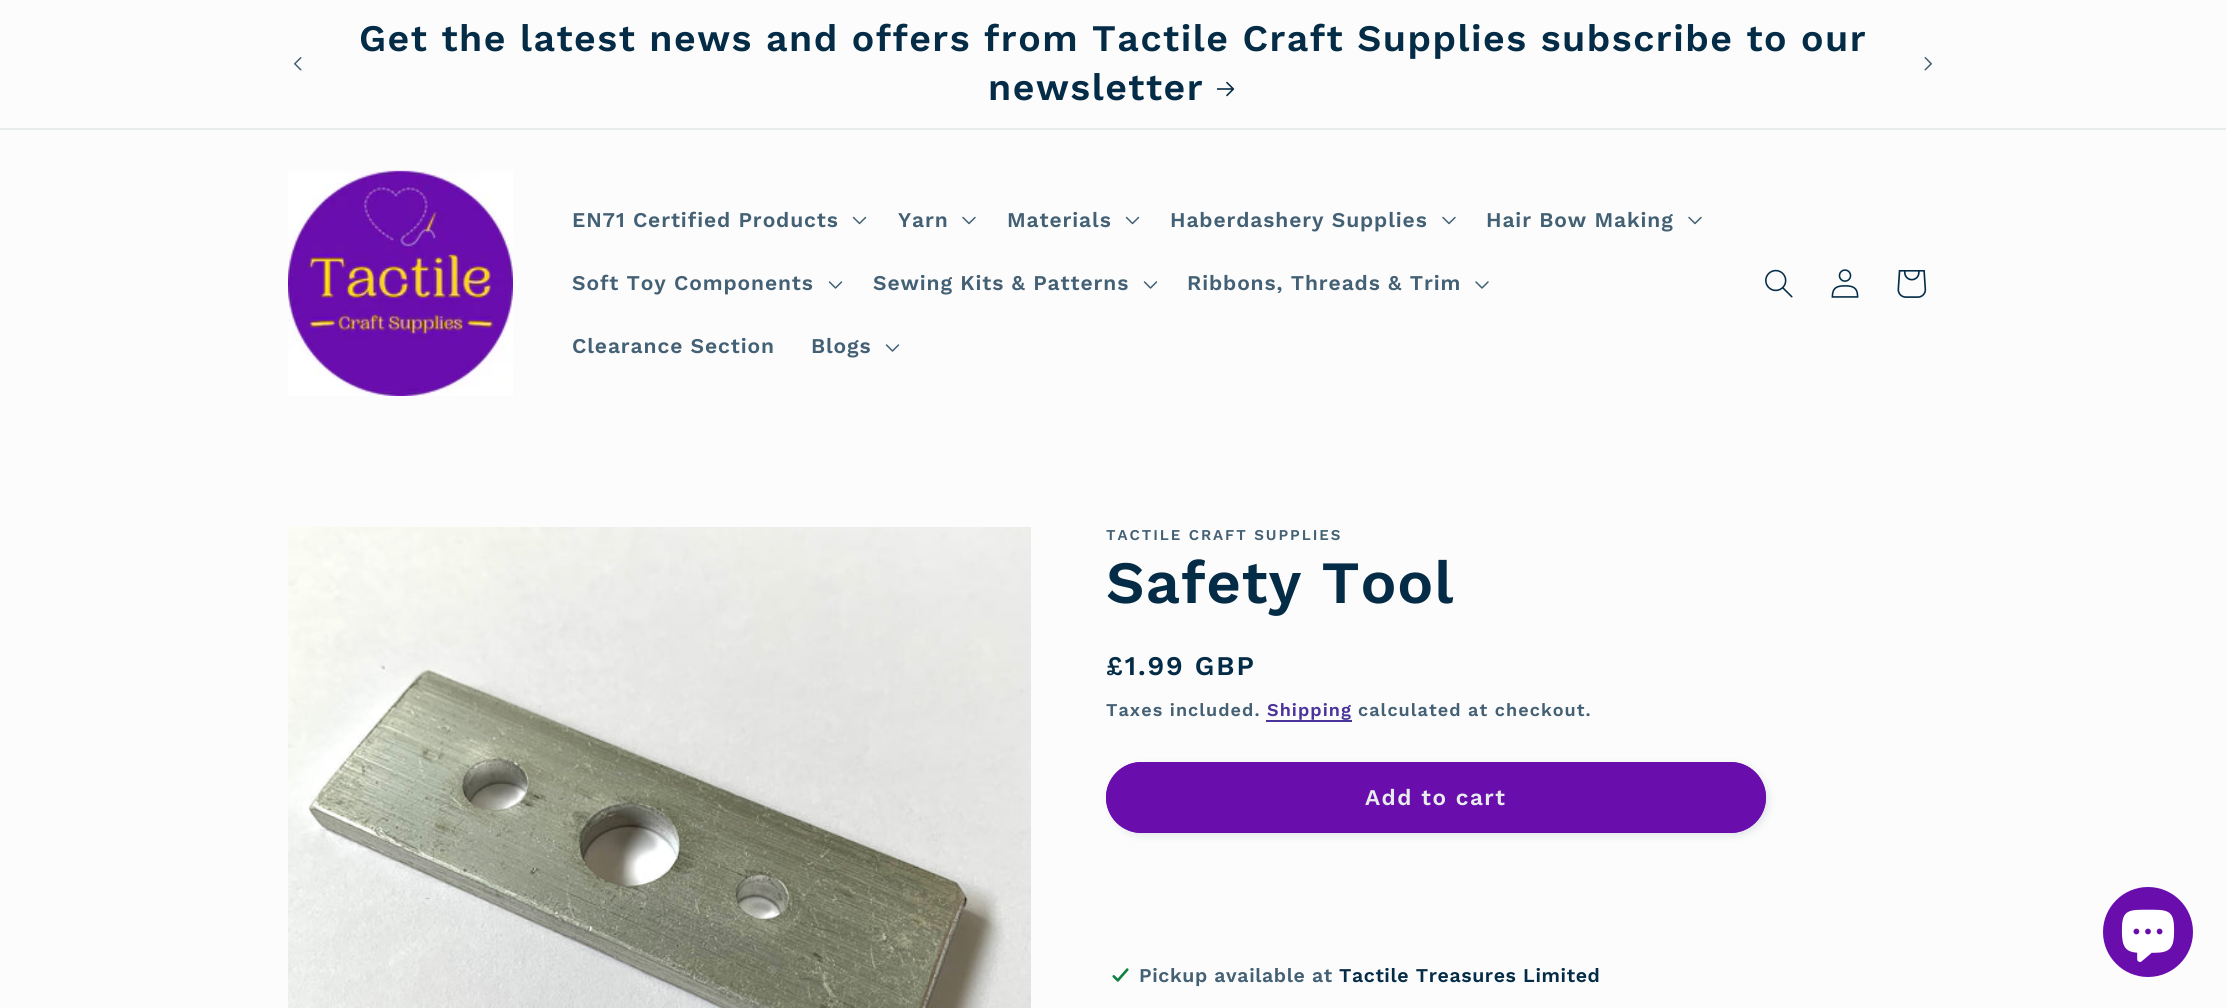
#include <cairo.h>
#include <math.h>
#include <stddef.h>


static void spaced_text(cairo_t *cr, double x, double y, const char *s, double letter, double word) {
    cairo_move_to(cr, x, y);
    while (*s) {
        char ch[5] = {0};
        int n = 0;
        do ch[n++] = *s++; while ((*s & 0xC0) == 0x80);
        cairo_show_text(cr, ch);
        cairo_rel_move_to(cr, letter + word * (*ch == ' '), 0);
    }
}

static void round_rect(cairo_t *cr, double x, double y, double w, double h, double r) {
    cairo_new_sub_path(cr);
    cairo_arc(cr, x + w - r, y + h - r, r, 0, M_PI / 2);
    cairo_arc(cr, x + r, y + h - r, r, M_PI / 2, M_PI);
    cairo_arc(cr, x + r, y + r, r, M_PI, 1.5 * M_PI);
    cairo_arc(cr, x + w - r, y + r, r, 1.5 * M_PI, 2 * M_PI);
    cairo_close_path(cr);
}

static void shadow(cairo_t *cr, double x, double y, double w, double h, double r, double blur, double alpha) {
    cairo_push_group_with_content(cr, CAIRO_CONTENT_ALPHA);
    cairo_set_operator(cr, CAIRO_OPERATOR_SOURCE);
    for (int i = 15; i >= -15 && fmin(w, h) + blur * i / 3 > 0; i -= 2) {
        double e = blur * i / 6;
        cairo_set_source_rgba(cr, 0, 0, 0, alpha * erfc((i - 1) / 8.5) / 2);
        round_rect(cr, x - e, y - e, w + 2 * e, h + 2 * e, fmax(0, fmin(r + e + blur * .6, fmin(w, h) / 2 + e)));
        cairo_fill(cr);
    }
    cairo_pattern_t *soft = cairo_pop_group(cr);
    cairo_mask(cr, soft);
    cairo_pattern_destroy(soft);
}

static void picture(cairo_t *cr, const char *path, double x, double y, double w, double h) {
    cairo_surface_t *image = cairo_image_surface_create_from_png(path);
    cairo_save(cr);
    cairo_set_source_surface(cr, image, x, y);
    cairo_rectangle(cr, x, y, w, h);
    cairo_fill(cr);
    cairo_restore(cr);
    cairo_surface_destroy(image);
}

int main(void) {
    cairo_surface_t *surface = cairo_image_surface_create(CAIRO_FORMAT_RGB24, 2226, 1008);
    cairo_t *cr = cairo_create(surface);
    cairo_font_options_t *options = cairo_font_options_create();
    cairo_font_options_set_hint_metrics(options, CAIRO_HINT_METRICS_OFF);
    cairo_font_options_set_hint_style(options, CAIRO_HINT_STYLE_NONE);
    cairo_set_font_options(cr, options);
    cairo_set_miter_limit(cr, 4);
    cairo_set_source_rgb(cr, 0.988, 0.988, 0.988);
    cairo_paint(cr);
    cairo_set_source_rgb(cr, 0.91, 0.922, 0.929);
    cairo_rectangle(cr, 0, 128, 2226, 2);
    cairo_fill(cr);
    picture(cr, "img1.png", 294, 57, 8, 14);
    cairo_select_font_face(cr, "Work Sans SemiBold", CAIRO_FONT_SLANT_NORMAL, CAIRO_FONT_WEIGHT_NORMAL);
    cairo_set_font_size(cr, 37.5);
    cairo_set_source_rgb(cr, 0.02, 0.173, 0.275);
    spaced_text(cr, 359, 51, "Get the latest news and offers from Tactile Craft Supplies subscribe to our", 1.5, 0);
    spaced_text(cr, 988, 100, "newsletter", 1.5, 0);
    picture(cr, "img2.png", 1217, 81, 18, 16);
    picture(cr, "img3.png", 1924, 57, 8, 14);
    picture(cr, "img4.png", 288, 170, 225, 226);
    cairo_set_font_size(cr, 21);
    cairo_set_source_rgb(cr, 0.263, 0.376, 0.455);
    spaced_text(cr, 572, 227, "EN71 Certified Products", 0.9, 0);
    picture(cr, "img5.png", 852, 216, 15, 9);
    spaced_text(cr, 898, 227, "Yarn", 0.9, 0);
    picture(cr, "img6.png", 962, 216, 14, 9);
    spaced_text(cr, 1007, 227, "Materials", 0.9, 0);
    picture(cr, "img5.png", 1125, 216, 15, 9);
    spaced_text(cr, 1170, 227, "Haberdashery Supplies", 0.9, 0);
    picture(cr, "img6.png", 1442, 216, 14, 9);
    spaced_text(cr, 1486, 227, "Hair Bow Making", 0.9, 0);
    picture(cr, "img6.png", 1688, 216, 14, 9);
    spaced_text(cr, 572, 290, "Soft Toy Components", 0.9, 0);
    picture(cr, "img7.png", 828, 281, 15, 8);
    spaced_text(cr, 873, 290, "Sewing Kits & Patterns", 0.9, 0);
    picture(cr, "img7.png", 1143, 281, 15, 8);
    spaced_text(cr, 1187, 290, "Ribbons, Threads & Trim", 0.9, 0);
    picture(cr, "img8.png", 1475, 281, 14, 8);
    spaced_text(cr, 572, 353, "Clearance Section", 0.9, 0);
    spaced_text(cr, 811, 353, "Blogs", 0.9, 0);
    picture(cr, "img7.png", 885, 344, 15, 8);
    picture(cr, "img9.png", 1765, 269, 28, 29);
    picture(cr, "img10.png", 1831, 269, 28, 29);
    picture(cr, "img11.png", 1897, 270, 30, 28);
    picture(cr, "img12.png", 288, 527, 743, 481);
    cairo_set_font_size(cr, 15);
    spaced_text(cr, 1106, 540, "TACTILE CRAFT SUPPLIES", 1.95, 0);
    cairo_set_font_size(cr, 60);
    cairo_set_source_rgb(cr, 0.02, 0.173, 0.275);
    spaced_text(cr, 1106, 603, "Safety Tool", 0.9, 0);
    cairo_set_font_size(cr, 27);
    spaced_text(cr, 1106, 675, "£1.99 GBP", 1.95, 0);
    cairo_set_font_size(cr, 18);
    cairo_set_source_rgb(cr, 0.263, 0.376, 0.455);
    spaced_text(cr, 1106, 716, "Taxes included.", 1.05, 0);
    cairo_set_source_rgb(cr, 0.29, 0.2, 0.604);
    spaced_text(cr, 1267, 716, "Shipping", 1.05, 0);
    cairo_rectangle(cr, 1266, 720, 86, 2);
    cairo_fill(cr);
    cairo_set_source_rgb(cr, 0.263, 0.376, 0.455);
    spaced_text(cr, 1358, 716, "calculated at checkout.", 1.05, 0);
    cairo_set_source_rgb(cr, 0.02, 0.173, 0.275);
    shadow(cr, 1109, 765, 660, 71, 35.5, 4, 0.1);
    cairo_set_source_rgb(cr, 0.416, 0.051, 0.678);
    round_rect(cr, 1106, 762, 660, 71, 35.5);
    cairo_fill(cr);
    round_rect(cr, 1107, 763, 658, 69, 34.5);
    cairo_stroke(cr);
    cairo_set_font_size(cr, 22.5);
    cairo_set_source_rgb(cr, 0.91, 0.922, 0.929);
    spaced_text(cr, 1365, 805, "Add to cart", 1.5, 0);
    picture(cr, "img13.png", 1112, 968, 17, 14);
    cairo_set_font_size(cr, 19.5);
    cairo_set_source_rgb(cr, 0.263, 0.376, 0.455);
    spaced_text(cr, 1139, 982, "Pickup available at", 0.6, 0);
    cairo_set_source_rgb(cr, 0.02, 0.173, 0.275);
    spaced_text(cr, 1339, 982, "Tactile Treasures Limited", 0.6, 0);
    cairo_set_source_rgb(cr, 0.416, 0.051, 0.678);
    cairo_new_path(cr);
    cairo_arc(cr, 2148, 932, 45, 0, 2 * M_PI);
    cairo_fill(cr);
    picture(cr, "img14.png", 2121, 909, 54, 53);
    cairo_surface_write_to_png(surface, "page.png");
    cairo_font_options_destroy(options);
    cairo_destroy(cr);
    cairo_surface_destroy(surface);
    return 0;
}
